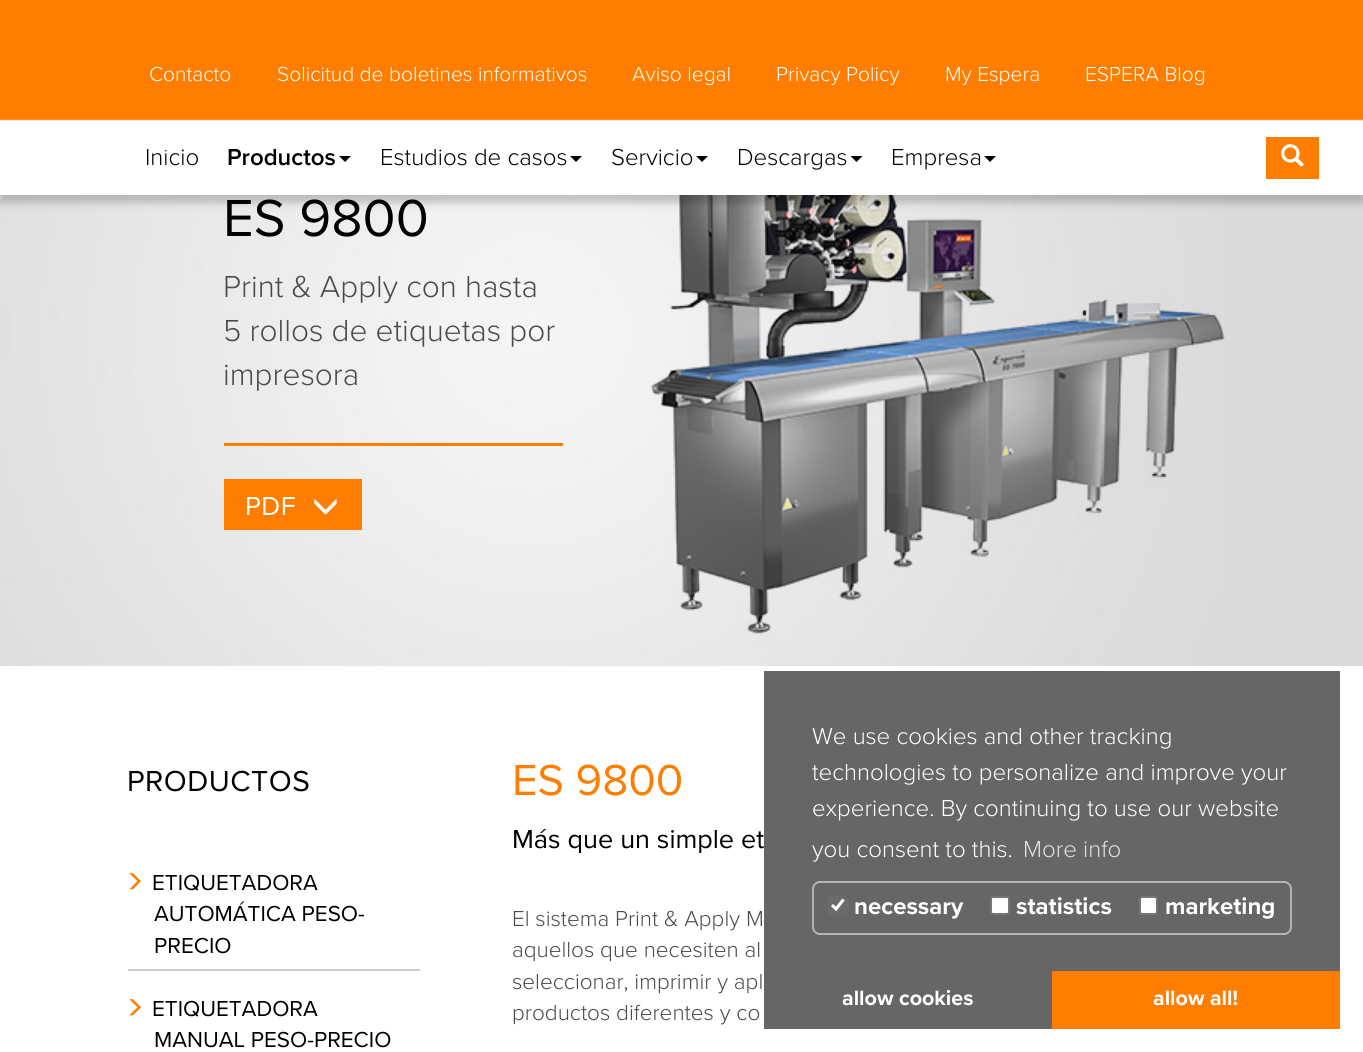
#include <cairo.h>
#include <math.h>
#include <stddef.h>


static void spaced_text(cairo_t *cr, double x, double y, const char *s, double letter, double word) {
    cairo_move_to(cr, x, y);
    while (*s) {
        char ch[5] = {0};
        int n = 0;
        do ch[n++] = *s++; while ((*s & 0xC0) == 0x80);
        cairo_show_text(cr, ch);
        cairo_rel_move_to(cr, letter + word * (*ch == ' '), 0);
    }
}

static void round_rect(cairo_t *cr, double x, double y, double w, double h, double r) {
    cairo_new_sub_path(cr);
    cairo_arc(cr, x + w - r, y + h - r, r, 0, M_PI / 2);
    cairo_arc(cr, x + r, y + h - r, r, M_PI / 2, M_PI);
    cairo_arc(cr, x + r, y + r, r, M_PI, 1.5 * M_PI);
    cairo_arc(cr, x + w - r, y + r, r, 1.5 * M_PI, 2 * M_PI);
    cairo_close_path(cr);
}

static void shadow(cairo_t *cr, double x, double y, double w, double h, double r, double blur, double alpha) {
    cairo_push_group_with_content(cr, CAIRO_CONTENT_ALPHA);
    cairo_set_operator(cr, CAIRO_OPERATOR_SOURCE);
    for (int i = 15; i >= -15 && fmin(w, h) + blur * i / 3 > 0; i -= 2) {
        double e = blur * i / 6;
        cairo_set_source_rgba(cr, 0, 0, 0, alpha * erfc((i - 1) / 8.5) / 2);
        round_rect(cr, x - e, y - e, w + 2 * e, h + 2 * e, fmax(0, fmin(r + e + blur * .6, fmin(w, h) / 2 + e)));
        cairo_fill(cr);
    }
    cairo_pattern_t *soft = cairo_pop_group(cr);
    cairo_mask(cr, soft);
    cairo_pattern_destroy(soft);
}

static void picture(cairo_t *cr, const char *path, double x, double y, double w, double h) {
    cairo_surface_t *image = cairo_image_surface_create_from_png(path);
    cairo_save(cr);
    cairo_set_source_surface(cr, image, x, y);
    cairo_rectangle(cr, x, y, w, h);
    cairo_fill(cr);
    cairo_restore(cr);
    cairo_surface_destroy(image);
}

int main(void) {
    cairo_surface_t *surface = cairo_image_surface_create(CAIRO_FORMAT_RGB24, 1363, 1052);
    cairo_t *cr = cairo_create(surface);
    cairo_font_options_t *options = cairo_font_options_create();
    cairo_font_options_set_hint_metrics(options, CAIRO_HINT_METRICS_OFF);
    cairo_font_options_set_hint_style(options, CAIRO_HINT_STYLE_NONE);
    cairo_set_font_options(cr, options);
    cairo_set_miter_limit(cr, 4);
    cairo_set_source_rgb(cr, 1, 1, 1);
    cairo_paint(cr);
    cairo_set_source_rgb(cr, 0.855, 0.855, 0.855);
    cairo_rectangle(cr, 1225, 195, 138, 471);
    cairo_fill(cr);
    picture(cr, "img4.png", 0, 195, 1225, 471);
    cairo_set_source_rgb(cr, 0, 0, 0);
    shadow(cr, 0, 8, 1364, 195, 0, 4, 0.2);
    picture(cr, "img1.png", 0, 0, 1363, 195);
    cairo_select_font_face(cr, "Proxima Nova Light", CAIRO_FONT_SLANT_NORMAL, CAIRO_FONT_WEIGHT_NORMAL);
    cairo_set_font_size(cr, 21);
    cairo_set_source_rgb(cr, 1, 1, 1);
    cairo_move_to(cr, 149, 81);
    cairo_show_text(cr, "Contacto");
    cairo_move_to(cr, 277, 81);
    cairo_show_text(cr, "Solicitud de boletines informativos");
    cairo_move_to(cr, 632, 81);
    cairo_show_text(cr, "Aviso legal");
    cairo_move_to(cr, 776, 81);
    cairo_show_text(cr, "Privacy Policy");
    cairo_move_to(cr, 945, 81);
    cairo_show_text(cr, "My Espera");
    cairo_move_to(cr, 1085, 81);
    cairo_show_text(cr, "ESPERA Blog");
    cairo_set_font_size(cr, 24);
    cairo_set_source_rgb(cr, 0, 0, 0);
    cairo_move_to(cr, 145, 165);
    cairo_show_text(cr, "Inicio");
    picture(cr, "img2.png", 164, 149, 3, 2);
    cairo_select_font_face(cr, "Proxima Nova SemiBold", CAIRO_FONT_SLANT_NORMAL, CAIRO_FONT_WEIGHT_NORMAL);
    cairo_move_to(cr, 227, 165);
    cairo_show_text(cr, "Productos");
    cairo_new_path(cr);
    cairo_move_to(cr, 339, 156);
    cairo_line_to(cr, 351, 156);
    cairo_line_to(cr, 345, 162);
    cairo_close_path(cr);
    cairo_fill(cr);
    cairo_select_font_face(cr, "Proxima Nova Light", CAIRO_FONT_SLANT_NORMAL, CAIRO_FONT_WEIGHT_NORMAL);
    cairo_move_to(cr, 380, 165);
    cairo_show_text(cr, "Estudios de casos");
    cairo_new_path(cr);
    cairo_move_to(cr, 570, 156);
    cairo_line_to(cr, 582, 156);
    cairo_line_to(cr, 576, 162);
    cairo_close_path(cr);
    cairo_fill(cr);
    cairo_move_to(cr, 611, 165);
    cairo_show_text(cr, "Servicio");
    cairo_new_path(cr);
    cairo_move_to(cr, 696, 156);
    cairo_line_to(cr, 708, 156);
    cairo_line_to(cr, 702, 162);
    cairo_close_path(cr);
    cairo_fill(cr);
    cairo_move_to(cr, 737, 165);
    cairo_show_text(cr, "Descargas");
    cairo_new_path(cr);
    cairo_move_to(cr, 850.5, 156);
    cairo_line_to(cr, 862.5, 156);
    cairo_line_to(cr, 856.5, 162);
    cairo_close_path(cr);
    cairo_fill(cr);
    cairo_move_to(cr, 891, 165);
    cairo_show_text(cr, "Empresa");
    cairo_new_path(cr);
    cairo_move_to(cr, 984, 156);
    cairo_line_to(cr, 996, 156);
    cairo_line_to(cr, 990, 162);
    cairo_close_path(cr);
    cairo_fill(cr);
    cairo_set_source_rgb(cr, 1, 0.49, 0);
    cairo_rectangle(cr, 1266, 137, 53, 42);
    cairo_fill(cr);
    picture(cr, "img3.png", 1281, 144, 23, 23);
    cairo_select_font_face(cr, "Proxima Nova", CAIRO_FONT_SLANT_NORMAL, CAIRO_FONT_WEIGHT_NORMAL);
    cairo_set_font_size(cr, 54);
    cairo_set_source_rgb(cr, 0, 0, 0);
    cairo_move_to(cr, 223, 236);
    cairo_show_text(cr, "ES 9800");
    cairo_set_source_rgb(cr, 1, 0.49, 0);
    cairo_rectangle(cr, 224, 443, 339, 3);
    cairo_fill(cr);
    cairo_select_font_face(cr, "Proxima Nova Light", CAIRO_FONT_SLANT_NORMAL, CAIRO_FONT_WEIGHT_NORMAL);
    cairo_set_font_size(cr, 31.5);
    cairo_set_source_rgb(cr, 0.294, 0.294, 0.294);
    cairo_move_to(cr, 223, 297);
    cairo_show_text(cr, "Print & Apply con hasta");
    cairo_move_to(cr, 223, 341);
    cairo_show_text(cr, "5 rollos de etiquetas por");
    cairo_move_to(cr, 223, 385);
    cairo_show_text(cr, "impresora");
    cairo_set_source_rgb(cr, 1, 0.49, 0);
    cairo_rectangle(cr, 224, 479, 138, 51);
    cairo_fill(cr);
    cairo_select_font_face(cr, "Proxima Nova", CAIRO_FONT_SLANT_NORMAL, CAIRO_FONT_WEIGHT_NORMAL);
    cairo_set_font_size(cr, 27);
    cairo_set_source_rgb(cr, 1, 1, 1);
    spaced_text(cr, 245, 515, "PDF", 0.5, 0);
    picture(cr, "img5.png", 314, 499, 23, 16);
    cairo_set_font_size(cr, 30);
    cairo_set_source_rgb(cr, 0, 0, 0);
    spaced_text(cr, 127, 791, "PRODUCTOS", 0.5, 0);
    cairo_set_source_rgb(cr, 0.8, 0.8, 0.8);
    cairo_rectangle(cr, 128, 969, 292, 2);
    cairo_fill(cr);
    picture(cr, "img6.png", 129, 873, 12, 17);
    cairo_set_font_size(cr, 22.5);
    cairo_set_source_rgb(cr, 0, 0, 0);
    cairo_move_to(cr, 152, 890);
    cairo_show_text(cr, "ETIQUETADORA");
    cairo_move_to(cr, 154, 921);
    cairo_show_text(cr, "AUTOMÁTICA PESO-");
    cairo_move_to(cr, 154, 953);
    cairo_show_text(cr, "PRECIO");
    picture(cr, "img6.png", 129, 999, 12, 17);
    cairo_move_to(cr, 152, 1016);
    cairo_show_text(cr, "ETIQUETADORA");
    cairo_move_to(cr, 154, 1047);
    cairo_show_text(cr, "MANUAL PESO-PRECIO");
    cairo_set_font_size(cr, 45);
    cairo_set_source_rgb(cr, 1, 0.49, 0);
    cairo_move_to(cr, 512, 795);
    cairo_show_text(cr, "ES 9800");
    cairo_set_font_size(cr, 27);
    cairo_set_source_rgb(cr, 0, 0, 0);
    cairo_move_to(cr, 512, 848);
    cairo_show_text(cr, "Más que un simple et");
    cairo_select_font_face(cr, "Proxima Nova Light", CAIRO_FONT_SLANT_NORMAL, CAIRO_FONT_WEIGHT_NORMAL);
    cairo_set_font_size(cr, 22.5);
    cairo_set_source_rgb(cr, 0.294, 0.294, 0.294);
    cairo_move_to(cr, 512, 926);
    cairo_show_text(cr, "El sistema Print & Apply M");
    cairo_move_to(cr, 512, 957);
    cairo_show_text(cr, "aquellos que necesiten al");
    cairo_move_to(cr, 512, 989);
    cairo_show_text(cr, "seleccionar, imprimir y apl");
    cairo_move_to(cr, 512, 1020);
    cairo_show_text(cr, "productos diferentes y co");
    cairo_set_source_rgb(cr, 0.4, 0.4, 0.4);
    cairo_rectangle(cr, 764, 671, 576, 358);
    cairo_fill(cr);
    cairo_set_font_size(cr, 24);
    cairo_set_source_rgb(cr, 1, 1, 1);
    cairo_move_to(cr, 812, 744);
    cairo_show_text(cr, "We use cookies and other tracking");
    cairo_move_to(cr, 812, 780);
    cairo_show_text(cr, "technologies to personalize and improve your");
    cairo_move_to(cr, 812, 816);
    cairo_show_text(cr, "experience. By continuing to use our website");
    cairo_move_to(cr, 812, 857);
    cairo_show_text(cr, "you consent to this.");
    cairo_set_source_rgb(cr, 0.878, 0.878, 0.878);
    cairo_move_to(cr, 1023, 857);
    cairo_show_text(cr, "More info");
    round_rect(cr, 813, 882, 478, 52, 7);
    cairo_set_source_rgb(cr, 0.702, 0.702, 0.702);
    cairo_stroke(cr);
    cairo_set_source_rgb(cr, 0.42, 0.42, 0.42);
    round_rect(cr, 828, 896, 20, 19, 3);
    cairo_fill(cr);
    cairo_new_path(cr);
    cairo_move_to(cr, 832, 905);
    cairo_line_to(cr, 836, 909);
    cairo_line_to(cr, 843.5, 899.5);
    cairo_set_source_rgb(cr, 1, 1, 1);
    cairo_set_line_width(cr, 3.1);
    cairo_stroke(cr);
    cairo_select_font_face(cr, "Proxima Nova", CAIRO_FONT_SLANT_NORMAL, CAIRO_FONT_WEIGHT_BOLD);
    cairo_move_to(cr, 854, 914);
    cairo_show_text(cr, "necessary");
    round_rect(cr, 991, 897, 18, 17, 2);
    cairo_fill_preserve(cr);
    cairo_set_source_rgb(cr, 0.463, 0.463, 0.463);
    cairo_set_line_width(cr, 2);
    cairo_stroke(cr);
    cairo_set_source_rgb(cr, 1, 1, 1);
    cairo_move_to(cr, 1016, 914);
    cairo_show_text(cr, "statistics");
    round_rect(cr, 1140, 897, 17, 17, 2);
    cairo_fill_preserve(cr);
    cairo_set_source_rgb(cr, 0.463, 0.463, 0.463);
    cairo_stroke(cr);
    cairo_set_source_rgb(cr, 1, 1, 1);
    cairo_move_to(cr, 1165, 914);
    cairo_show_text(cr, "marketing");
    cairo_set_font_size(cr, 21.5);
    cairo_move_to(cr, 842, 1005);
    cairo_show_text(cr, "allow cookies");
    cairo_set_source_rgb(cr, 1, 0.49, 0);
    cairo_rectangle(cr, 1052, 971, 288, 58);
    cairo_fill(cr);
    cairo_set_source_rgb(cr, 1, 1, 1);
    cairo_move_to(cr, 1153, 1005);
    cairo_show_text(cr, "allow all!");
    cairo_surface_write_to_png(surface, "page.png");
    cairo_font_options_destroy(options);
    cairo_destroy(cr);
    cairo_surface_destroy(surface);
    return 0;
}
